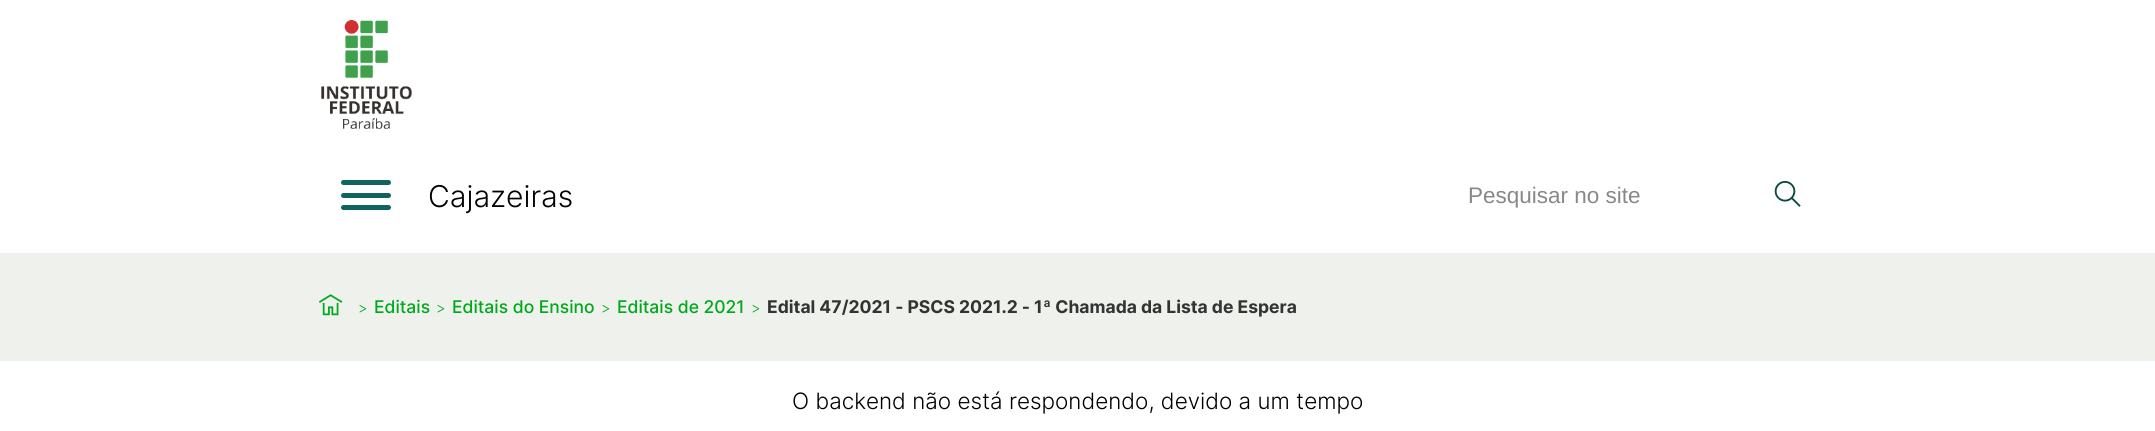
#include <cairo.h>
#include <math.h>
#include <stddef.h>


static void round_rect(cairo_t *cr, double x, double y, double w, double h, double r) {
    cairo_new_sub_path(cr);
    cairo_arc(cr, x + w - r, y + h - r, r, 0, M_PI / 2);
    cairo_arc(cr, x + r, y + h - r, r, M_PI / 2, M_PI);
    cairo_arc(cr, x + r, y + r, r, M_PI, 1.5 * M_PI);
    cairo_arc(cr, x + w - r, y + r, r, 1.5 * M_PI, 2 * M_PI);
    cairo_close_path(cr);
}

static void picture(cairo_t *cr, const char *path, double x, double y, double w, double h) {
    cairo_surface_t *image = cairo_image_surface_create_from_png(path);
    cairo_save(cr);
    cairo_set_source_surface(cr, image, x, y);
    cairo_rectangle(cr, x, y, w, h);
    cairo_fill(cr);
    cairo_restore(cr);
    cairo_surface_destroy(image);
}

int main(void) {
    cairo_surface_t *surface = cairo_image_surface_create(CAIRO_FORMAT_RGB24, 2155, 431);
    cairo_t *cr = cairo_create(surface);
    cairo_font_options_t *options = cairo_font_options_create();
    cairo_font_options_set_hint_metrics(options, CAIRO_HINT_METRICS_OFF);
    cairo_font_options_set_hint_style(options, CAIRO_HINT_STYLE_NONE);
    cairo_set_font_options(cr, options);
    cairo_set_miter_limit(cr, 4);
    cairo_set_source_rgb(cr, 1, 1, 1);
    cairo_paint(cr);
    picture(cr, "img1.png", 321, 20, 91, 109);
    cairo_set_source_rgb(cr, 0.059, 0.392, 0.376);
    round_rect(cr, 341, 180, 50, 5, 2.5);
    cairo_fill(cr);
    round_rect(cr, 341, 193, 50, 5, 2.5);
    cairo_fill(cr);
    round_rect(cr, 341, 205, 50, 5, 2.5);
    cairo_fill(cr);
    cairo_select_font_face(cr, "Inter Light", CAIRO_FONT_SLANT_NORMAL, CAIRO_FONT_WEIGHT_NORMAL);
    cairo_set_font_size(cr, 30);
    cairo_set_source_rgb(cr, 0, 0, 0);
    cairo_move_to(cr, 428, 207);
    cairo_show_text(cr, "Cajazeiras");
    cairo_select_font_face(cr, "Liberation Sans", CAIRO_FONT_SLANT_NORMAL, CAIRO_FONT_WEIGHT_NORMAL);
    cairo_set_font_size(cr, 22.5);
    cairo_set_source_rgb(cr, 0.533, 0.533, 0.533);
    cairo_move_to(cr, 1468, 203);
    cairo_show_text(cr, "Pesquisar no site");
    picture(cr, "img2.png", 1774, 181, 27, 26);
    cairo_set_source_rgb(cr, 0.933, 0.945, 0.925);
    cairo_rectangle(cr, 0, 253, 2155, 108);
    cairo_fill(cr);
    picture(cr, "img3.png", 319, 294, 24, 22);
    cairo_select_font_face(cr, "Inter Light", CAIRO_FONT_SLANT_NORMAL, CAIRO_FONT_WEIGHT_NORMAL);
    cairo_set_font_size(cr, 15);
    cairo_set_source_rgb(cr, 0, 0.663, 0.11);
    cairo_move_to(cr, 358, 313);
    cairo_show_text(cr, ">");
    cairo_select_font_face(cr, "Inter Medium", CAIRO_FONT_SLANT_NORMAL, CAIRO_FONT_WEIGHT_NORMAL);
    cairo_set_font_size(cr, 17.5);
    cairo_move_to(cr, 374, 313);
    cairo_show_text(cr, "Editais");
    cairo_select_font_face(cr, "Inter Light", CAIRO_FONT_SLANT_NORMAL, CAIRO_FONT_WEIGHT_NORMAL);
    cairo_set_font_size(cr, 15);
    cairo_move_to(cr, 436, 313);
    cairo_show_text(cr, ">");
    cairo_select_font_face(cr, "Inter Medium", CAIRO_FONT_SLANT_NORMAL, CAIRO_FONT_WEIGHT_NORMAL);
    cairo_set_font_size(cr, 17.5);
    cairo_move_to(cr, 452, 313);
    cairo_show_text(cr, "Editais do Ensino");
    cairo_select_font_face(cr, "Inter Light", CAIRO_FONT_SLANT_NORMAL, CAIRO_FONT_WEIGHT_NORMAL);
    cairo_set_font_size(cr, 15);
    cairo_move_to(cr, 601, 313);
    cairo_show_text(cr, ">");
    cairo_select_font_face(cr, "Inter Medium", CAIRO_FONT_SLANT_NORMAL, CAIRO_FONT_WEIGHT_NORMAL);
    cairo_set_font_size(cr, 17.5);
    cairo_move_to(cr, 617, 313);
    cairo_show_text(cr, "Editais de 2021");
    cairo_select_font_face(cr, "Inter Light", CAIRO_FONT_SLANT_NORMAL, CAIRO_FONT_WEIGHT_NORMAL);
    cairo_set_font_size(cr, 15);
    cairo_move_to(cr, 751, 313);
    cairo_show_text(cr, ">");
    cairo_select_font_face(cr, "Inter", CAIRO_FONT_SLANT_NORMAL, CAIRO_FONT_WEIGHT_BOLD);
    cairo_set_font_size(cr, 17.5);
    cairo_set_source_rgb(cr, 0.2, 0.2, 0.2);
    cairo_move_to(cr, 767, 313);
    cairo_show_text(cr, "Edital 47/2021 - PSCS 2021.2 - 1ª Chamada da Lista de Espera");
    cairo_select_font_face(cr, "Inter Light", CAIRO_FONT_SLANT_NORMAL, CAIRO_FONT_WEIGHT_NORMAL);
    cairo_set_font_size(cr, 22.5);
    cairo_set_source_rgb(cr, 0, 0, 0);
    cairo_move_to(cr, 792, 409);
    cairo_show_text(cr, "O backend não está respondendo, devido a um tempo");
    cairo_surface_write_to_png(surface, "page.png");
    cairo_font_options_destroy(options);
    cairo_destroy(cr);
    cairo_surface_destroy(surface);
    return 0;
}
